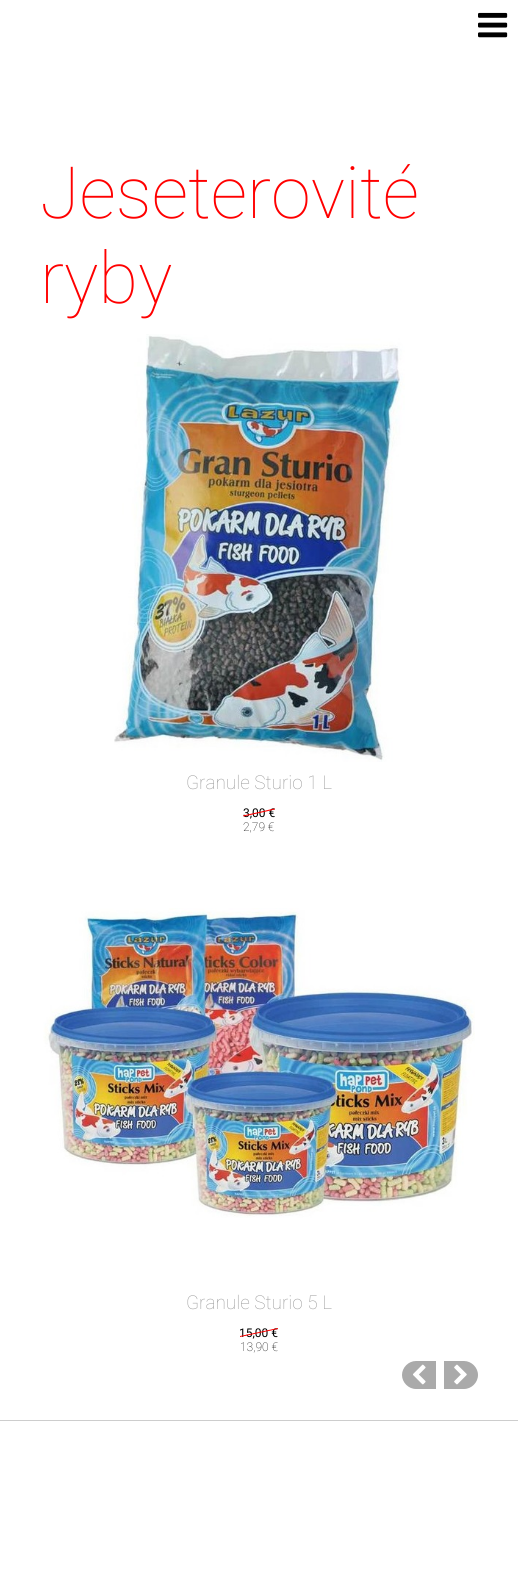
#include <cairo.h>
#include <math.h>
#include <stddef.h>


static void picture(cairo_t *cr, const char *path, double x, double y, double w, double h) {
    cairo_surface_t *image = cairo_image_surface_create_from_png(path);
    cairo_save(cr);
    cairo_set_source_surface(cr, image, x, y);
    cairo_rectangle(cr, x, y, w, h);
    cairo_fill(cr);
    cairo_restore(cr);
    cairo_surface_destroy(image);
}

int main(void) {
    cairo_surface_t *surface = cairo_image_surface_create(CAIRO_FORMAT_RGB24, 518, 1571);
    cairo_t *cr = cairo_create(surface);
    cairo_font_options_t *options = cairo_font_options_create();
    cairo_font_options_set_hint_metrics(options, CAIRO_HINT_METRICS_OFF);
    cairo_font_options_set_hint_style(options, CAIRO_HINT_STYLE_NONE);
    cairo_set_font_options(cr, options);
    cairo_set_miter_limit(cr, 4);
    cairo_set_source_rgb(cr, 1, 1, 1);
    cairo_paint(cr);
    picture(cr, "img1.png", 478, 12, 30, 26);
    cairo_select_font_face(cr, "Roboto Thin", CAIRO_FONT_SLANT_NORMAL, CAIRO_FONT_WEIGHT_NORMAL);
    cairo_set_font_size(cr, 72);
    cairo_set_source_rgb(cr, 1, 0, 0);
    cairo_move_to(cr, 40, 218);
    cairo_show_text(cr, "Jeseterovité");
    cairo_move_to(cr, 40, 303);
    cairo_show_text(cr, "ryby");
    picture(cr, "img2.png", 114, 334, 291, 428);
    cairo_set_font_size(cr, 19);
    cairo_set_source_rgb(cr, 0.604, 0.604, 0.604);
    cairo_move_to(cr, 186, 789);
    cairo_show_text(cr, "Granule Sturio 1 L");
    cairo_select_font_face(cr, "Roboto", CAIRO_FONT_SLANT_NORMAL, CAIRO_FONT_WEIGHT_NORMAL);
    cairo_set_font_size(cr, 12);
    cairo_set_source_rgb(cr, 0, 0, 0);
    cairo_move_to(cr, 243, 817);
    cairo_show_text(cr, "3,00 €");
    cairo_set_source_rgb(cr, 1, 0, 0);
    cairo_new_path(cr);
    cairo_move_to(cr, 243, 815.5);
    cairo_line_to(cr, 274.5, 808.5);
    cairo_line_to(cr, 275, 809.5);
    cairo_line_to(cr, 243.5, 816.5);
    cairo_close_path(cr);
    cairo_fill(cr);
    cairo_select_font_face(cr, "Roboto Thin", CAIRO_FONT_SLANT_NORMAL, CAIRO_FONT_WEIGHT_NORMAL);
    cairo_set_source_rgb(cr, 0, 0, 0);
    cairo_move_to(cr, 243, 831);
    cairo_show_text(cr, "2,79 €");
    picture(cr, "img3.png", 43, 908, 432, 310);
    cairo_set_font_size(cr, 19);
    cairo_set_source_rgb(cr, 0.604, 0.604, 0.604);
    cairo_move_to(cr, 186, 1309);
    cairo_show_text(cr, "Granule Sturio 5 L");
    cairo_select_font_face(cr, "Roboto", CAIRO_FONT_SLANT_NORMAL, CAIRO_FONT_WEIGHT_NORMAL);
    cairo_set_font_size(cr, 12);
    cairo_set_source_rgb(cr, 0, 0, 0);
    cairo_move_to(cr, 239, 1337);
    cairo_show_text(cr, "15,00 €");
    cairo_set_source_rgb(cr, 1, 0, 0);
    cairo_new_path(cr);
    cairo_move_to(cr, 240, 1336);
    cairo_line_to(cr, 278, 1328);
    cairo_line_to(cr, 278, 1329);
    cairo_line_to(cr, 240, 1337);
    cairo_close_path(cr);
    cairo_fill(cr);
    cairo_select_font_face(cr, "Roboto Thin", CAIRO_FONT_SLANT_NORMAL, CAIRO_FONT_WEIGHT_NORMAL);
    cairo_set_source_rgb(cr, 0, 0, 0);
    cairo_move_to(cr, 240, 1351);
    cairo_show_text(cr, "13,90 €");
    cairo_set_source_rgb(cr, 0.667, 0.667, 0.667);
    cairo_new_path(cr);
    cairo_move_to(cr, 416, 1361);
    cairo_line_to(cr, 436, 1361);
    cairo_line_to(cr, 436, 1389);
    cairo_line_to(cr, 416, 1389);
    cairo_curve_to(cr, 408.5, 1389, 402, 1382.5, 402, 1375);
    cairo_curve_to(cr, 402, 1367.5, 408.5, 1361, 416, 1361);
    cairo_close_path(cr);
    cairo_fill(cr);
    picture(cr, "img4.png", 413, 1364, 13, 21);
    cairo_new_path(cr);
    cairo_move_to(cr, 444, 1361);
    cairo_line_to(cr, 464, 1361);
    cairo_curve_to(cr, 471.5, 1361, 478, 1367.5, 478, 1375);
    cairo_curve_to(cr, 478, 1382.5, 471.5, 1389, 464, 1389);
    cairo_line_to(cr, 444, 1389);
    cairo_close_path(cr);
    cairo_fill(cr);
    picture(cr, "img5.png", 454, 1364, 13, 21);
    cairo_set_source_rgb(cr, 0.804, 0.804, 0.804);
    cairo_rectangle(cr, 0, 1420, 518, 1);
    cairo_fill(cr);
    cairo_surface_write_to_png(surface, "page.png");
    cairo_font_options_destroy(options);
    cairo_destroy(cr);
    cairo_surface_destroy(surface);
    return 0;
}
